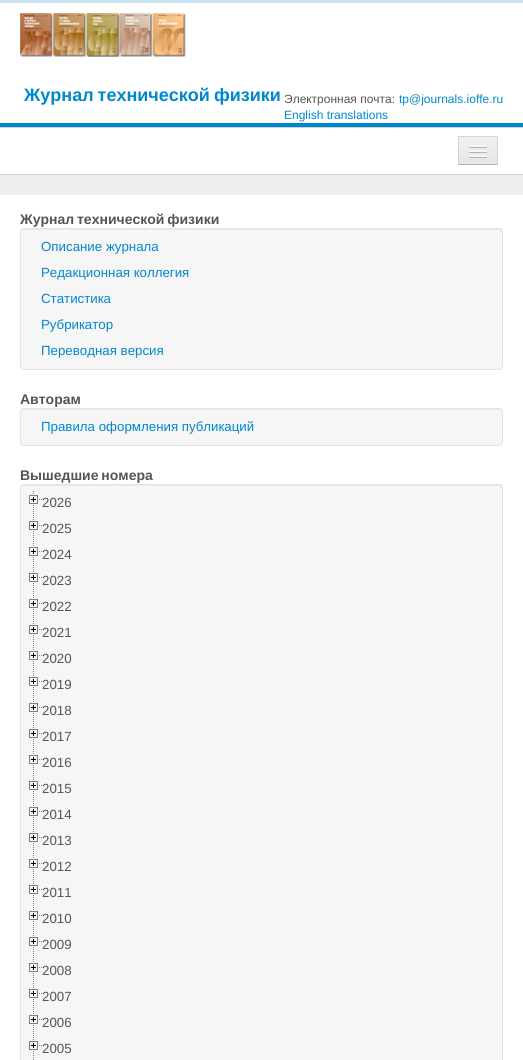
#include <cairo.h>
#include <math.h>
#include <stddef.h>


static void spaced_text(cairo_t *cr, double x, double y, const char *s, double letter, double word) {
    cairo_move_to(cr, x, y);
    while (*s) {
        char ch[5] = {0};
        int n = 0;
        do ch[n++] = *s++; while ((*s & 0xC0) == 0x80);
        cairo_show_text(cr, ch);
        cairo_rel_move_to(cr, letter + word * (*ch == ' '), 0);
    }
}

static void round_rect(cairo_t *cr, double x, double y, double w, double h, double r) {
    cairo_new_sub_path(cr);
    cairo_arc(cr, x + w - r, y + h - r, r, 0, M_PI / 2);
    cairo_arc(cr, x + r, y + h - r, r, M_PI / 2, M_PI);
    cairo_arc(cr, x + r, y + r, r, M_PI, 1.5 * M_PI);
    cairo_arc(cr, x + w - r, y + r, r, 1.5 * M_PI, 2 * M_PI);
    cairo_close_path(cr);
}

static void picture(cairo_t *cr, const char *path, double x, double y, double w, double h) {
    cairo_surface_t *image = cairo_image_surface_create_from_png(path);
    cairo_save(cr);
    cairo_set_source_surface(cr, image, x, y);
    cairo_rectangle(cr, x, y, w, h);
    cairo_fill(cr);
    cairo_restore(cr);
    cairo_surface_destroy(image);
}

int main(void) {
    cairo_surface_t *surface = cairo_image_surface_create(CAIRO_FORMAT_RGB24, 523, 1060);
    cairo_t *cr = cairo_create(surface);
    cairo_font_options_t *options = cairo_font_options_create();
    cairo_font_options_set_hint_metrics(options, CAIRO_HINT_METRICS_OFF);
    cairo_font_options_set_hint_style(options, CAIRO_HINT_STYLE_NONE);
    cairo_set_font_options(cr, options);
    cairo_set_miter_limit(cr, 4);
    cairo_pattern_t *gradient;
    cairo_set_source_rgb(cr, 0.937, 0.937, 0.937);
    cairo_paint(cr);
    cairo_set_source_rgb(cr, 1, 1, 1);
    cairo_rectangle(cr, 0, 3, 523, 120);
    cairo_fill(cr);
    cairo_set_source_rgb(cr, 0.788, 0.878, 0.929);
    cairo_rectangle(cr, 0, 0, 523, 3);
    cairo_fill(cr);
    cairo_set_source_rgb(cr, 0, 0.533, 0.8);
    cairo_rectangle(cr, 0, 123, 523, 4);
    cairo_fill(cr);
    picture(cr, "img1.png", 20, 13, 166, 44);
    cairo_select_font_face(cr, "Liberation Sans", CAIRO_FONT_SLANT_NORMAL, CAIRO_FONT_WEIGHT_BOLD);
    cairo_set_font_size(cr, 18);
    spaced_text(cr, 24, 101, "Журнал технической физики", 0, -1);
    cairo_select_font_face(cr, "Liberation Sans", CAIRO_FONT_SLANT_NORMAL, CAIRO_FONT_WEIGHT_NORMAL);
    cairo_set_font_size(cr, 12);
    cairo_set_source_rgb(cr, 0.333, 0.333, 0.333);
    cairo_move_to(cr, 284, 103);
    cairo_show_text(cr, "Электронная почта:");
    cairo_set_source_rgb(cr, 0, 0.533, 0.8);
    cairo_move_to(cr, 399, 103);
    cairo_show_text(cr, "tp@journals.ioffe.ru");
    cairo_move_to(cr, 284, 119);
    cairo_show_text(cr, "English translations");
    cairo_set_source_rgb(cr, 1, 1, 1);
    cairo_rectangle(cr, 0, 128, 523, 46);
    cairo_fill(cr);
    cairo_set_source_rgb(cr, 0.831, 0.831, 0.831);
    cairo_rectangle(cr, 0, 127, 523, 1);
    cairo_fill(cr);
    cairo_rectangle(cr, 0, 174, 523, 1);
    cairo_fill(cr);
    cairo_set_source_rgb(cr, 0.929, 0.929, 0.929);
    cairo_rectangle(cr, 458, 136, 40, 29);
    cairo_fill(cr);
    gradient = cairo_pattern_create_linear(478, 137, 478, 164);
    cairo_pattern_add_color_stop_rgba(gradient, 0, 0.949, 0.949, 0.949, 1);
    cairo_pattern_add_color_stop_rgba(gradient, 1, 0.898, 0.898, 0.898, 1);
    cairo_set_source(cr, gradient);
    cairo_pattern_destroy(gradient);
    cairo_rectangle(cr, 458, 137, 40, 27);
    cairo_fill(cr);
    cairo_set_source_rgb(cr, 0.835, 0.835, 0.835);
    cairo_new_path(cr);
    cairo_move_to(cr, 458, 136);
    cairo_line_to(cr, 498, 136);
    cairo_line_to(cr, 497, 137);
    cairo_line_to(cr, 459, 137);
    cairo_close_path(cr);
    cairo_fill(cr);
    cairo_set_source_rgba(cr, 0, 0, 0, 0.1);
    cairo_new_path(cr);
    cairo_move_to(cr, 498, 136);
    cairo_line_to(cr, 498, 165);
    cairo_line_to(cr, 497, 164);
    cairo_line_to(cr, 497, 137);
    cairo_close_path(cr);
    cairo_fill(cr);
    cairo_set_source_rgba(cr, 0, 0, 0, 0.25);
    cairo_new_path(cr);
    cairo_move_to(cr, 498, 165);
    cairo_line_to(cr, 458, 165);
    cairo_line_to(cr, 459, 164);
    cairo_line_to(cr, 497, 164);
    cairo_close_path(cr);
    cairo_fill(cr);
    cairo_set_source_rgba(cr, 0, 0, 0, 0.1);
    cairo_new_path(cr);
    cairo_move_to(cr, 458, 165);
    cairo_line_to(cr, 458, 136);
    cairo_line_to(cr, 459, 137);
    cairo_line_to(cr, 459, 164);
    cairo_close_path(cr);
    cairo_fill(cr);
    cairo_set_source_rgb(cr, 0.698, 0.698, 0.698);
    cairo_new_path(cr);
    cairo_move_to(cr, 469, 146.5);
    cairo_curve_to(cr, 468, 148.5, 472.5, 148, 472.5, 148);
    cairo_line_to(cr, 483.5, 148);
    cairo_curve_to(cr, 483.5, 148, 488, 148.5, 487, 146.5);
    cairo_curve_to(cr, 486, 147.5, 479.5, 147, 478, 147);
    cairo_curve_to(cr, 476.5, 147, 470, 147.5, 469, 146.5);
    cairo_close_path(cr);
    cairo_fill(cr);
    cairo_set_source_rgb(cr, 0.961, 0.961, 0.961);
    round_rect(cr, 469, 145, 18, 2, 1);
    cairo_fill(cr);
    cairo_set_source_rgb(cr, 0.69, 0.69, 0.69);
    cairo_new_path(cr);
    cairo_move_to(cr, 469, 151.5);
    cairo_curve_to(cr, 468, 153.5, 472.5, 153, 472.5, 153);
    cairo_line_to(cr, 483.5, 153);
    cairo_curve_to(cr, 483.5, 153, 488, 153.5, 487, 151.5);
    cairo_curve_to(cr, 486, 152.5, 479.5, 152, 478, 152);
    cairo_curve_to(cr, 476.5, 152, 470, 152.5, 469, 151.5);
    cairo_close_path(cr);
    cairo_fill(cr);
    cairo_set_source_rgb(cr, 0.961, 0.961, 0.961);
    round_rect(cr, 469, 150, 18, 2, 1);
    cairo_fill(cr);
    cairo_set_source_rgb(cr, 0.682, 0.682, 0.682);
    cairo_new_path(cr);
    cairo_move_to(cr, 469, 156.5);
    cairo_curve_to(cr, 468, 158.5, 472.5, 158, 472.5, 158);
    cairo_line_to(cr, 483.5, 158);
    cairo_curve_to(cr, 483.5, 158, 488, 158.5, 487, 156.5);
    cairo_curve_to(cr, 486, 157.5, 479.5, 157, 478, 157);
    cairo_curve_to(cr, 476.5, 157, 470, 157.5, 469, 156.5);
    cairo_close_path(cr);
    cairo_fill(cr);
    cairo_set_source_rgb(cr, 0.961, 0.961, 0.961);
    round_rect(cr, 469, 155, 18, 2, 1);
    cairo_fill(cr);
    cairo_set_source_rgb(cr, 1, 1, 1);
    cairo_rectangle(cr, 0, 195, 523, 865);
    cairo_fill(cr);
    cairo_select_font_face(cr, "Liberation Sans", CAIRO_FONT_SLANT_NORMAL, CAIRO_FONT_WEIGHT_BOLD);
    cairo_set_font_size(cr, 14);
    cairo_set_source_rgb(cr, 0.333, 0.333, 0.333);
    spaced_text(cr, 20, 224, "Журнал технической физики", 0, -1);
    cairo_set_source_rgb(cr, 0.961, 0.961, 0.961);
    round_rect(cr, 20, 228, 483, 142, 4);
    cairo_fill(cr);
    cairo_set_source_rgb(cr, 0.914, 0.914, 0.914);
    cairo_new_path(cr);
    cairo_move_to(cr, 24, 230);
    cairo_line_to(cr, 499, 230);
    cairo_curve_to(cr, 501, 230, 502, 231, 502, 233);
    cairo_line_to(cr, 502, 232);
    cairo_curve_to(cr, 502, 230, 501, 229, 499, 229);
    cairo_line_to(cr, 24, 229);
    cairo_curve_to(cr, 22, 229, 21, 230, 21, 232);
    cairo_line_to(cr, 21, 233);
    cairo_curve_to(cr, 21, 231, 22, 230, 24, 230);
    cairo_close_path(cr);
    cairo_fill(cr);
    round_rect(cr, 20.5, 228.5, 482, 141, 3.5);
    cairo_set_source_rgb(cr, 0.89, 0.89, 0.89);
    cairo_set_line_width(cr, 1);
    cairo_stroke(cr);
    cairo_select_font_face(cr, "Liberation Sans", CAIRO_FONT_SLANT_NORMAL, CAIRO_FONT_WEIGHT_NORMAL);
    cairo_set_font_size(cr, 13.3);
    cairo_set_source_rgb(cr, 0, 0.533, 0.8);
    cairo_move_to(cr, 41, 251);
    cairo_show_text(cr, "Описание журнала");
    cairo_move_to(cr, 41, 277);
    cairo_show_text(cr, "Редакционная коллегия");
    cairo_move_to(cr, 41, 303);
    cairo_show_text(cr, "Статистика");
    cairo_move_to(cr, 41, 329);
    cairo_show_text(cr, "Рубрикатор");
    cairo_move_to(cr, 41, 355);
    cairo_show_text(cr, "Переводная версия");
    cairo_select_font_face(cr, "Liberation Sans", CAIRO_FONT_SLANT_NORMAL, CAIRO_FONT_WEIGHT_BOLD);
    cairo_set_font_size(cr, 14);
    cairo_set_source_rgb(cr, 0.333, 0.333, 0.333);
    cairo_move_to(cr, 20, 404);
    cairo_show_text(cr, "Авторам");
    cairo_set_source_rgb(cr, 0.961, 0.961, 0.961);
    round_rect(cr, 20, 408, 483, 38, 4);
    cairo_fill(cr);
    cairo_set_source_rgb(cr, 0.914, 0.914, 0.914);
    cairo_new_path(cr);
    cairo_move_to(cr, 24, 410);
    cairo_line_to(cr, 499, 410);
    cairo_curve_to(cr, 501, 410, 502, 411, 502, 413);
    cairo_line_to(cr, 502, 412);
    cairo_curve_to(cr, 502, 410, 501, 409, 499, 409);
    cairo_line_to(cr, 24, 409);
    cairo_curve_to(cr, 22, 409, 21, 410, 21, 412);
    cairo_line_to(cr, 21, 413);
    cairo_curve_to(cr, 21, 411, 22, 410, 24, 410);
    cairo_close_path(cr);
    cairo_fill(cr);
    round_rect(cr, 20.5, 408.5, 482, 37, 3.5);
    cairo_set_source_rgb(cr, 0.89, 0.89, 0.89);
    cairo_stroke(cr);
    cairo_select_font_face(cr, "Liberation Sans", CAIRO_FONT_SLANT_NORMAL, CAIRO_FONT_WEIGHT_NORMAL);
    cairo_set_font_size(cr, 13.3);
    cairo_set_source_rgb(cr, 0, 0.533, 0.8);
    cairo_move_to(cr, 41, 431);
    cairo_show_text(cr, "Правила оформления публикаций");
    cairo_select_font_face(cr, "Liberation Sans", CAIRO_FONT_SLANT_NORMAL, CAIRO_FONT_WEIGHT_BOLD);
    cairo_set_font_size(cr, 14);
    cairo_set_source_rgb(cr, 0.333, 0.333, 0.333);
    spaced_text(cr, 20, 480, "Вышедшие номера", 0, -1);
    cairo_set_source_rgb(cr, 0.961, 0.961, 0.961);
    round_rect(cr, 20, 484, 483, 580, 4);
    cairo_fill(cr);
    cairo_set_source_rgb(cr, 0.914, 0.914, 0.914);
    cairo_new_path(cr);
    cairo_move_to(cr, 24, 486);
    cairo_line_to(cr, 499, 486);
    cairo_curve_to(cr, 501, 486, 502, 487, 502, 489);
    cairo_line_to(cr, 502, 488);
    cairo_curve_to(cr, 502, 486, 501, 485, 499, 485);
    cairo_line_to(cr, 24, 485);
    cairo_curve_to(cr, 22, 485, 21, 486, 21, 488);
    cairo_line_to(cr, 21, 489);
    cairo_curve_to(cr, 21, 487, 22, 486, 24, 486);
    cairo_close_path(cr);
    cairo_fill(cr);
    round_rect(cr, 20.5, 484.5, 482, 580, 3.5);
    cairo_set_source_rgb(cr, 0.89, 0.89, 0.89);
    cairo_stroke(cr);
    picture(cr, "img2.png", 33, 491, 1, 25);
    picture(cr, "img3.png", 29, 495, 13, 9);
    cairo_select_font_face(cr, "Liberation Sans", CAIRO_FONT_SLANT_NORMAL, CAIRO_FONT_WEIGHT_NORMAL);
    cairo_set_font_size(cr, 13.3);
    cairo_set_source_rgb(cr, 0.333, 0.333, 0.333);
    cairo_move_to(cr, 42, 507);
    cairo_show_text(cr, "2026");
    picture(cr, "img2.png", 33, 517, 1, 25);
    picture(cr, "img3.png", 29, 521, 13, 9);
    cairo_move_to(cr, 42, 533);
    cairo_show_text(cr, "2025");
    picture(cr, "img2.png", 33, 543, 1, 25);
    picture(cr, "img3.png", 29, 547, 13, 9);
    cairo_move_to(cr, 42, 559);
    cairo_show_text(cr, "2024");
    picture(cr, "img2.png", 33, 569, 1, 25);
    picture(cr, "img3.png", 29, 573, 13, 9);
    cairo_move_to(cr, 42, 585);
    cairo_show_text(cr, "2023");
    picture(cr, "img2.png", 33, 595, 1, 25);
    picture(cr, "img3.png", 29, 599, 13, 9);
    cairo_move_to(cr, 42, 611);
    cairo_show_text(cr, "2022");
    picture(cr, "img2.png", 33, 621, 1, 25);
    picture(cr, "img3.png", 29, 625, 13, 9);
    cairo_move_to(cr, 42, 637);
    cairo_show_text(cr, "2021");
    picture(cr, "img2.png", 33, 647, 1, 25);
    picture(cr, "img3.png", 29, 651, 13, 9);
    cairo_move_to(cr, 42, 663);
    cairo_show_text(cr, "2020");
    picture(cr, "img2.png", 33, 673, 1, 25);
    picture(cr, "img3.png", 29, 677, 13, 9);
    cairo_move_to(cr, 42, 689);
    cairo_show_text(cr, "2019");
    picture(cr, "img2.png", 33, 699, 1, 25);
    picture(cr, "img3.png", 29, 703, 13, 9);
    cairo_move_to(cr, 42, 715);
    cairo_show_text(cr, "2018");
    picture(cr, "img2.png", 33, 725, 1, 25);
    picture(cr, "img3.png", 29, 729, 13, 9);
    cairo_move_to(cr, 42, 741);
    cairo_show_text(cr, "2017");
    picture(cr, "img2.png", 33, 751, 1, 25);
    picture(cr, "img3.png", 29, 755, 13, 9);
    cairo_move_to(cr, 42, 767);
    cairo_show_text(cr, "2016");
    picture(cr, "img2.png", 33, 777, 1, 25);
    picture(cr, "img3.png", 29, 781, 13, 9);
    cairo_move_to(cr, 42, 793);
    cairo_show_text(cr, "2015");
    picture(cr, "img2.png", 33, 803, 1, 25);
    picture(cr, "img3.png", 29, 807, 13, 9);
    cairo_move_to(cr, 42, 819);
    cairo_show_text(cr, "2014");
    picture(cr, "img2.png", 33, 829, 1, 25);
    picture(cr, "img3.png", 29, 833, 13, 9);
    cairo_move_to(cr, 42, 845);
    cairo_show_text(cr, "2013");
    picture(cr, "img2.png", 33, 855, 1, 25);
    picture(cr, "img3.png", 29, 859, 13, 9);
    cairo_move_to(cr, 42, 871);
    cairo_show_text(cr, "2012");
    picture(cr, "img2.png", 33, 881, 1, 25);
    picture(cr, "img3.png", 29, 885, 13, 9);
    cairo_move_to(cr, 42, 897);
    cairo_show_text(cr, "2011");
    picture(cr, "img2.png", 33, 907, 1, 25);
    picture(cr, "img3.png", 29, 911, 13, 9);
    cairo_move_to(cr, 42, 923);
    cairo_show_text(cr, "2010");
    picture(cr, "img2.png", 33, 933, 1, 25);
    picture(cr, "img3.png", 29, 937, 13, 9);
    cairo_move_to(cr, 42, 949);
    cairo_show_text(cr, "2009");
    picture(cr, "img2.png", 33, 959, 1, 25);
    picture(cr, "img3.png", 29, 963, 13, 9);
    cairo_move_to(cr, 42, 975);
    cairo_show_text(cr, "2008");
    picture(cr, "img2.png", 33, 985, 1, 25);
    picture(cr, "img3.png", 29, 989, 13, 9);
    cairo_move_to(cr, 42, 1001);
    cairo_show_text(cr, "2007");
    picture(cr, "img2.png", 33, 1011, 1, 25);
    picture(cr, "img3.png", 29, 1015, 13, 9);
    cairo_move_to(cr, 42, 1027);
    cairo_show_text(cr, "2006");
    picture(cr, "img4.png", 33, 1037, 1, 23);
    picture(cr, "img3.png", 29, 1041, 13, 9);
    cairo_move_to(cr, 42, 1053);
    cairo_show_text(cr, "2005");
    cairo_surface_write_to_png(surface, "page.png");
    cairo_font_options_destroy(options);
    cairo_destroy(cr);
    cairo_surface_destroy(surface);
    return 0;
}
